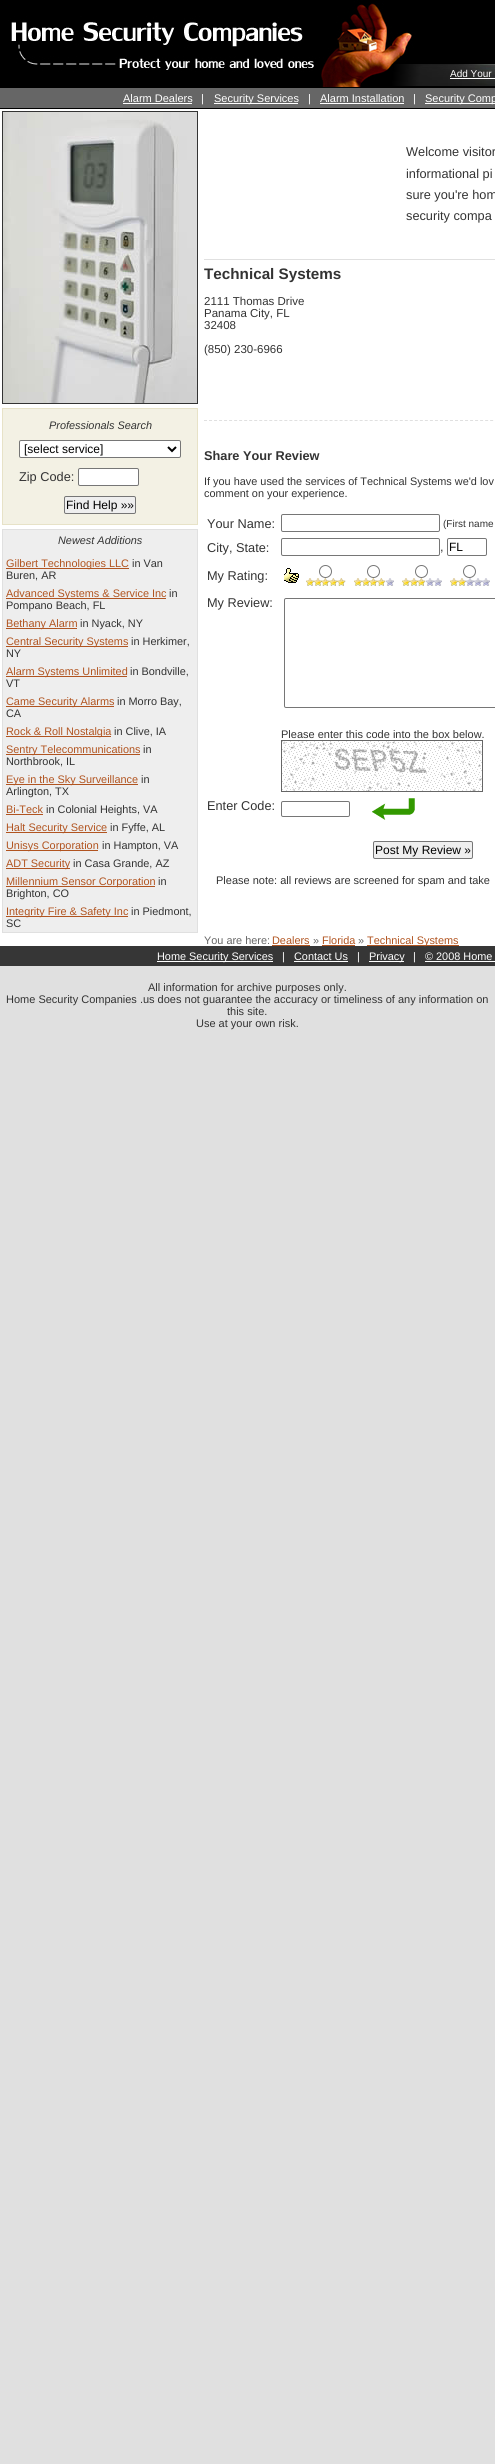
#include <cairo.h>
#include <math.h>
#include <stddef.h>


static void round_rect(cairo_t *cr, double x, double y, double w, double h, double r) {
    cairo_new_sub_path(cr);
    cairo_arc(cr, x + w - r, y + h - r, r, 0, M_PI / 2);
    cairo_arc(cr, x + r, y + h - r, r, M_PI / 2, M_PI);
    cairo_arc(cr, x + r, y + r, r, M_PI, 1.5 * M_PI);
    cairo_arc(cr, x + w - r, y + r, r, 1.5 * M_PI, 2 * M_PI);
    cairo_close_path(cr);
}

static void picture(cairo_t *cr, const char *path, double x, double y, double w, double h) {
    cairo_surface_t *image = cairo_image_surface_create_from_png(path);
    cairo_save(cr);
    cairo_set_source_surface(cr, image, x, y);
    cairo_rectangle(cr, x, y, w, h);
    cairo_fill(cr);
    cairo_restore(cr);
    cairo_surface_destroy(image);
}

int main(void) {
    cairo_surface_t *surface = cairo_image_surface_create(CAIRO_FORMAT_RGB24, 495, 2464);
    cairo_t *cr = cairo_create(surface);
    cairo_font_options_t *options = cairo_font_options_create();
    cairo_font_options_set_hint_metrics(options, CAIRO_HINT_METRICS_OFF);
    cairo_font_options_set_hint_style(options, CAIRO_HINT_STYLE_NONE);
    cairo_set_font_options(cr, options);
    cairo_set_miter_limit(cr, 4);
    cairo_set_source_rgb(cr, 0.878, 0.878, 0.878);
    cairo_paint(cr);
    cairo_set_source_rgb(cr, 1, 1, 1);
    cairo_rectangle(cr, 0, 109, 495, 837);
    cairo_fill(cr);
    picture(cr, "img1.png", 0, 0, 495, 87);
    cairo_select_font_face(cr, "Liberation Sans", CAIRO_FONT_SLANT_NORMAL, CAIRO_FONT_WEIGHT_NORMAL);
    cairo_set_font_size(cr, 10);
    cairo_move_to(cr, 450, 77);
    cairo_show_text(cr, "Add Your");
    cairo_rectangle(cr, 450, 78, 45, 1);
    cairo_fill(cr);
    cairo_set_source_rgb(cr, 0.4, 0.4, 0.4);
    cairo_rectangle(cr, 0, 88, 495, 20);
    cairo_fill(cr);
    cairo_set_source_rgb(cr, 0, 0, 0);
    cairo_rectangle(cr, 0, 87, 495, 1);
    cairo_fill(cr);
    cairo_rectangle(cr, 0, 108, 495, 1);
    cairo_fill(cr);
    cairo_set_font_size(cr, 11);
    cairo_set_source_rgb(cr, 1, 1, 1);
    cairo_move_to(cr, 123, 102);
    cairo_show_text(cr, "Alarm Dealers");
    cairo_rectangle(cr, 123, 103, 69, 1);
    cairo_fill(cr);
    cairo_move_to(cr, 201, 102);
    cairo_show_text(cr, "|");
    cairo_rectangle(cr, 214, 103, 84, 1);
    cairo_fill(cr);
    cairo_move_to(cr, 214, 102);
    cairo_show_text(cr, "Security Services");
    cairo_move_to(cr, 308, 102);
    cairo_show_text(cr, "|");
    cairo_move_to(cr, 320, 102);
    cairo_show_text(cr, "Alarm Installation");
    cairo_rectangle(cr, 320, 103, 84, 1);
    cairo_fill(cr);
    cairo_move_to(cr, 413, 102);
    cairo_show_text(cr, "|");
    cairo_rectangle(cr, 425, 103, 70, 1);
    cairo_fill(cr);
    cairo_move_to(cr, 425, 102);
    cairo_show_text(cr, "Security Comp");
    cairo_rectangle(cr, 2.5, 111.5, 195, 292);
    cairo_set_source_rgb(cr, 0.2, 0.2, 0.2);
    cairo_set_line_width(cr, 1);
    cairo_stroke(cr);
    picture(cr, "img2.png", 3, 112, 194, 291);
    cairo_set_source_rgb(cr, 0.953, 0.945, 0.894);
    cairo_rectangle(cr, 2.5, 408.5, 195, 116);
    cairo_fill_preserve(cr);
    cairo_set_source_rgb(cr, 0.906, 0.886, 0.78);
    cairo_stroke(cr);
    cairo_select_font_face(cr, "Liberation Sans", CAIRO_FONT_SLANT_ITALIC, CAIRO_FONT_WEIGHT_NORMAL);
    cairo_set_font_size(cr, 10.9);
    cairo_set_source_rgb(cr, 0.2, 0.2, 0.2);
    cairo_move_to(cr, 49, 429);
    cairo_show_text(cr, "Professionals Search");
    cairo_set_source_rgb(cr, 1, 1, 1);
    round_rect(cr, 19.5, 440.5, 161, 17, 1.5);
    cairo_fill_preserve(cr);
    cairo_set_source_rgb(cr, 0.463, 0.463, 0.463);
    cairo_stroke(cr);
    cairo_new_path(cr);
    cairo_move_to(cr, 168, 447);
    cairo_line_to(cr, 172, 451);
    cairo_line_to(cr, 176, 447);
    cairo_set_source_rgb(cr, 0, 0, 0);
    cairo_set_line_width(cr, 2);
    cairo_stroke(cr);
    cairo_select_font_face(cr, "Liberation Sans", CAIRO_FONT_SLANT_NORMAL, CAIRO_FONT_WEIGHT_NORMAL);
    cairo_set_font_size(cr, 12);
    cairo_move_to(cr, 24, 453);
    cairo_show_text(cr, "[select service]");
    cairo_set_font_size(cr, 12.75);
    cairo_set_source_rgb(cr, 0.2, 0.2, 0.2);
    cairo_move_to(cr, 19, 481);
    cairo_show_text(cr, "Zip Code:");
    cairo_set_source_rgb(cr, 1, 1, 1);
    round_rect(cr, 78.5, 468.5, 60, 17, 1.5);
    cairo_fill_preserve(cr);
    cairo_set_source_rgb(cr, 0.463, 0.463, 0.463);
    cairo_set_line_width(cr, 1);
    cairo_stroke(cr);
    cairo_set_source_rgb(cr, 0.937, 0.937, 0.937);
    round_rect(cr, 64.5, 496.5, 71, 17, 1.5);
    cairo_fill_preserve(cr);
    cairo_set_source_rgb(cr, 0.463, 0.463, 0.463);
    cairo_stroke(cr);
    cairo_set_font_size(cr, 12);
    cairo_set_source_rgb(cr, 0, 0, 0);
    cairo_move_to(cr, 66, 509);
    cairo_show_text(cr, "Find Help »»");
    cairo_set_source_rgb(cr, 0.933, 0.933, 0.933);
    cairo_rectangle(cr, 2.5, 529.5, 195, 403);
    cairo_fill_preserve(cr);
    cairo_set_source_rgb(cr, 0.878, 0.878, 0.878);
    cairo_stroke(cr);
    cairo_select_font_face(cr, "Liberation Sans", CAIRO_FONT_SLANT_ITALIC, CAIRO_FONT_WEIGHT_NORMAL);
    cairo_set_font_size(cr, 10.9);
    cairo_set_source_rgb(cr, 0.2, 0.2, 0.2);
    cairo_move_to(cr, 58, 544);
    cairo_show_text(cr, "Newest Additions");
    cairo_set_source_rgb(cr, 0.694, 0.329, 0.125);
    cairo_rectangle(cr, 6, 568, 123, 1);
    cairo_fill(cr);
    cairo_select_font_face(cr, "Liberation Sans", CAIRO_FONT_SLANT_NORMAL, CAIRO_FONT_WEIGHT_NORMAL);
    cairo_move_to(cr, 6, 567);
    cairo_show_text(cr, "Gilbert Technologies LLC");
    cairo_set_source_rgb(cr, 0.2, 0.2, 0.2);
    cairo_move_to(cr, 132, 567);
    cairo_show_text(cr, "in Van");
    cairo_move_to(cr, 6, 579);
    cairo_show_text(cr, "Buren, AR");
    cairo_set_source_rgb(cr, 0.694, 0.329, 0.125);
    cairo_rectangle(cr, 6, 598, 160, 1);
    cairo_fill(cr);
    cairo_move_to(cr, 6, 597);
    cairo_show_text(cr, "Advanced Systems & Service Inc");
    cairo_set_source_rgb(cr, 0.2, 0.2, 0.2);
    cairo_move_to(cr, 169, 597);
    cairo_show_text(cr, "in");
    cairo_move_to(cr, 6, 609);
    cairo_show_text(cr, "Pompano Beach, FL");
    cairo_set_source_rgb(cr, 0.694, 0.329, 0.125);
    cairo_rectangle(cr, 6, 628, 71, 1);
    cairo_fill(cr);
    cairo_move_to(cr, 6, 627);
    cairo_show_text(cr, "Bethany Alarm");
    cairo_set_source_rgb(cr, 0.2, 0.2, 0.2);
    cairo_move_to(cr, 80, 627);
    cairo_show_text(cr, "in Nyack, NY");
    cairo_set_source_rgb(cr, 0.694, 0.329, 0.125);
    cairo_rectangle(cr, 6, 646, 122, 1);
    cairo_fill(cr);
    cairo_move_to(cr, 6, 645);
    cairo_show_text(cr, "Central Security Systems");
    cairo_set_source_rgb(cr, 0.2, 0.2, 0.2);
    cairo_move_to(cr, 131, 645);
    cairo_show_text(cr, "in Herkimer,");
    cairo_move_to(cr, 6, 657);
    cairo_show_text(cr, "NY");
    cairo_set_source_rgb(cr, 0.694, 0.329, 0.125);
    cairo_rectangle(cr, 6, 676, 121, 1);
    cairo_fill(cr);
    cairo_move_to(cr, 6, 675);
    cairo_show_text(cr, "Alarm Systems Unlimited");
    cairo_set_source_rgb(cr, 0.2, 0.2, 0.2);
    cairo_move_to(cr, 130, 675);
    cairo_show_text(cr, "in Bondville,");
    cairo_move_to(cr, 6, 687);
    cairo_show_text(cr, "VT");
    cairo_set_source_rgb(cr, 0.694, 0.329, 0.125);
    cairo_rectangle(cr, 6, 706, 108, 1);
    cairo_fill(cr);
    cairo_move_to(cr, 6, 705);
    cairo_show_text(cr, "Came Security Alarms");
    cairo_set_source_rgb(cr, 0.2, 0.2, 0.2);
    cairo_move_to(cr, 117, 705);
    cairo_show_text(cr, "in Morro Bay,");
    cairo_move_to(cr, 6, 717);
    cairo_show_text(cr, "CA");
    cairo_set_source_rgb(cr, 0.694, 0.329, 0.125);
    cairo_rectangle(cr, 6, 736, 105, 1);
    cairo_fill(cr);
    cairo_move_to(cr, 6, 735);
    cairo_show_text(cr, "Rock & Roll Nostalgia");
    cairo_set_source_rgb(cr, 0.2, 0.2, 0.2);
    cairo_move_to(cr, 114, 735);
    cairo_show_text(cr, "in Clive, IA");
    cairo_set_source_rgb(cr, 0.694, 0.329, 0.125);
    cairo_rectangle(cr, 6, 754, 134, 1);
    cairo_fill(cr);
    cairo_move_to(cr, 6, 753);
    cairo_show_text(cr, "Sentry Telecommunications");
    cairo_set_source_rgb(cr, 0.2, 0.2, 0.2);
    cairo_move_to(cr, 143, 753);
    cairo_show_text(cr, "in");
    cairo_move_to(cr, 6, 765);
    cairo_show_text(cr, "Northbrook, IL");
    cairo_set_source_rgb(cr, 0.694, 0.329, 0.125);
    cairo_rectangle(cr, 6, 784, 132, 1);
    cairo_fill(cr);
    cairo_move_to(cr, 6, 783);
    cairo_show_text(cr, "Eye in the Sky Surveillance");
    cairo_set_source_rgb(cr, 0.2, 0.2, 0.2);
    cairo_move_to(cr, 141, 783);
    cairo_show_text(cr, "in");
    cairo_move_to(cr, 6, 795);
    cairo_show_text(cr, "Arlington, TX");
    cairo_set_source_rgb(cr, 0.694, 0.329, 0.125);
    cairo_move_to(cr, 6, 813);
    cairo_show_text(cr, "Bi-Teck");
    cairo_rectangle(cr, 6, 814, 37, 1);
    cairo_fill(cr);
    cairo_set_source_rgb(cr, 0.2, 0.2, 0.2);
    cairo_move_to(cr, 46, 813);
    cairo_show_text(cr, "in Colonial Heights, VA");
    cairo_set_source_rgb(cr, 0.694, 0.329, 0.125);
    cairo_rectangle(cr, 6, 832, 101, 1);
    cairo_fill(cr);
    cairo_move_to(cr, 6, 831);
    cairo_show_text(cr, "Halt Security Service");
    cairo_set_source_rgb(cr, 0.2, 0.2, 0.2);
    cairo_move_to(cr, 110, 831);
    cairo_show_text(cr, "in Fyffe, AL");
    cairo_set_source_rgb(cr, 0.694, 0.329, 0.125);
    cairo_rectangle(cr, 6, 850, 92, 1);
    cairo_fill(cr);
    cairo_move_to(cr, 6, 849);
    cairo_show_text(cr, "Unisys Corporation");
    cairo_set_source_rgb(cr, 0.2, 0.2, 0.2);
    cairo_move_to(cr, 102, 849);
    cairo_show_text(cr, "in Hampton, VA");
    cairo_set_source_rgb(cr, 0.694, 0.329, 0.125);
    cairo_rectangle(cr, 6, 868, 64, 1);
    cairo_fill(cr);
    cairo_move_to(cr, 6, 867);
    cairo_show_text(cr, "ADT Security");
    cairo_set_source_rgb(cr, 0.2, 0.2, 0.2);
    cairo_move_to(cr, 73, 867);
    cairo_show_text(cr, "in Casa Grande, AZ");
    cairo_set_source_rgb(cr, 0.694, 0.329, 0.125);
    cairo_rectangle(cr, 6, 886, 149, 1);
    cairo_fill(cr);
    cairo_move_to(cr, 6, 885);
    cairo_show_text(cr, "Millennium Sensor Corporation");
    cairo_set_source_rgb(cr, 0.2, 0.2, 0.2);
    cairo_move_to(cr, 158, 885);
    cairo_show_text(cr, "in");
    cairo_move_to(cr, 6, 897);
    cairo_show_text(cr, "Brighton, CO");
    cairo_set_source_rgb(cr, 0.694, 0.329, 0.125);
    cairo_rectangle(cr, 6, 916, 122, 1);
    cairo_fill(cr);
    cairo_move_to(cr, 6, 915);
    cairo_show_text(cr, "Integrity Fire & Safety Inc");
    cairo_set_source_rgb(cr, 0.2, 0.2, 0.2);
    cairo_move_to(cr, 131, 915);
    cairo_show_text(cr, "in Piedmont,");
    cairo_move_to(cr, 6, 927);
    cairo_show_text(cr, "SC");
    cairo_set_source_rgb(cr, 0.878, 0.878, 0.878);
    cairo_rectangle(cr, 204, 259, 291, 1);
    cairo_fill(cr);
    cairo_set_font_size(cr, 12.75);
    cairo_set_source_rgb(cr, 0.2, 0.2, 0.2);
    cairo_move_to(cr, 406, 156);
    cairo_show_text(cr, "Welcome visitor");
    cairo_move_to(cr, 406, 178);
    cairo_show_text(cr, "informational pi");
    cairo_move_to(cr, 406, 199);
    cairo_show_text(cr, "sure you're hom");
    cairo_move_to(cr, 406, 220);
    cairo_show_text(cr, "security compa");
    cairo_select_font_face(cr, "Liberation Sans", CAIRO_FONT_SLANT_NORMAL, CAIRO_FONT_WEIGHT_BOLD);
    cairo_set_font_size(cr, 15.25);
    cairo_move_to(cr, 204, 279);
    cairo_show_text(cr, "Technical Systems");
    cairo_select_font_face(cr, "Liberation Sans", CAIRO_FONT_SLANT_NORMAL, CAIRO_FONT_WEIGHT_NORMAL);
    cairo_set_font_size(cr, 11.5);
    cairo_move_to(cr, 204, 305);
    cairo_show_text(cr, "2111 Thomas Drive");
    cairo_move_to(cr, 204, 317);
    cairo_show_text(cr, "Panama City, FL");
    cairo_move_to(cr, 204, 329);
    cairo_show_text(cr, "32408");
    cairo_move_to(cr, 204, 353);
    cairo_show_text(cr, "(850) 230-6966");
    cairo_new_path(cr);
    cairo_move_to(cr, 204, 420.5);
    cairo_line_to(cr, 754, 420.5);
    cairo_set_source_rgb(cr, 0.878, 0.878, 0.878);
    cairo_set_dash(cr, (double[]){3, 2.02}, 2, 0);
    cairo_stroke(cr);
    cairo_select_font_face(cr, "Liberation Sans", CAIRO_FONT_SLANT_NORMAL, CAIRO_FONT_WEIGHT_BOLD);
    cairo_set_font_size(cr, 12.75);
    cairo_set_source_rgb(cr, 0.2, 0.2, 0.2);
    cairo_move_to(cr, 204, 460);
    cairo_show_text(cr, "Share Your Review");
    cairo_select_font_face(cr, "Liberation Sans", CAIRO_FONT_SLANT_NORMAL, CAIRO_FONT_WEIGHT_NORMAL);
    cairo_set_font_size(cr, 10.9);
    cairo_move_to(cr, 204, 485);
    cairo_show_text(cr, "If you have used the services of Technical Systems we'd lov");
    cairo_move_to(cr, 204, 497);
    cairo_show_text(cr, "comment on your experience.");
    cairo_set_font_size(cr, 12.75);
    cairo_move_to(cr, 207, 528);
    cairo_show_text(cr, "Your Name:");
    round_rect(cr, 281.5, 514.5, 158, 17, 1.5);
    cairo_set_source_rgb(cr, 0.463, 0.463, 0.463);
    cairo_set_dash(cr, NULL, 0, 0);
    cairo_stroke(cr);
    cairo_set_font_size(cr, 10);
    cairo_set_source_rgb(cr, 0.2, 0.2, 0.2);
    cairo_move_to(cr, 443, 527);
    cairo_show_text(cr, "(First name");
    cairo_set_font_size(cr, 12.75);
    cairo_move_to(cr, 207, 552);
    cairo_show_text(cr, "City, State:");
    round_rect(cr, 281.5, 538.5, 158, 17, 1.5);
    cairo_set_source_rgb(cr, 0.463, 0.463, 0.463);
    cairo_stroke(cr);
    cairo_set_source_rgb(cr, 0.2, 0.2, 0.2);
    cairo_move_to(cr, 440, 551);
    cairo_show_text(cr, ",");
    round_rect(cr, 447.5, 538.5, 39, 17, 1.5);
    cairo_set_source_rgb(cr, 0.463, 0.463, 0.463);
    cairo_stroke(cr);
    cairo_set_font_size(cr, 12);
    cairo_set_source_rgb(cr, 0, 0, 0);
    cairo_move_to(cr, 449, 551);
    cairo_show_text(cr, "FL");
    cairo_set_font_size(cr, 12.75);
    cairo_set_source_rgb(cr, 0.2, 0.2, 0.2);
    cairo_move_to(cr, 207, 580);
    cairo_show_text(cr, "My Rating:");
    picture(cr, "img3.png", 284, 568, 15, 15);
    cairo_arc(cr, 325.5, 571.5, 6, 0, 2 * M_PI);
    cairo_set_source_rgb(cr, 0.463, 0.463, 0.463);
    cairo_stroke(cr);
    picture(cr, "img4.png", 306, 578, 40, 8);
    cairo_arc(cr, 373.5, 571.5, 6, 0, 2 * M_PI);
    cairo_stroke(cr);
    picture(cr, "img5.png", 354, 578, 40, 8);
    cairo_arc(cr, 421.5, 571.5, 6, 0, 2 * M_PI);
    cairo_stroke(cr);
    picture(cr, "img6.png", 402, 578, 40, 8);
    cairo_arc(cr, 469.5, 571.5, 6, 0, 2 * M_PI);
    cairo_stroke(cr);
    picture(cr, "img7.png", 450, 578, 40, 8);
    cairo_set_source_rgb(cr, 0.2, 0.2, 0.2);
    cairo_move_to(cr, 207, 607);
    cairo_show_text(cr, "My Review:");
    round_rect(cr, 284.5, 598.5, 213, 109, 1.5);
    cairo_set_source_rgb(cr, 0.463, 0.463, 0.463);
    cairo_stroke(cr);
    cairo_set_font_size(cr, 11);
    cairo_set_source_rgb(cr, 0.2, 0.2, 0.2);
    cairo_move_to(cr, 281, 738);
    cairo_show_text(cr, "Please enter this code into the box below.");
    cairo_rectangle(cr, 281.5, 740.5, 201, 51);
    cairo_set_source_rgb(cr, 0.4, 0.4, 0.4);
    cairo_stroke(cr);
    picture(cr, "img8.png", 282, 741, 200, 50);
    cairo_set_font_size(cr, 12.75);
    cairo_set_source_rgb(cr, 0.2, 0.2, 0.2);
    cairo_move_to(cr, 207, 810);
    cairo_show_text(cr, "Enter Code:");
    round_rect(cr, 281.5, 801.5, 68, 15, 1.5);
    cairo_set_source_rgb(cr, 0.463, 0.463, 0.463);
    cairo_stroke(cr);
    picture(cr, "img9.png", 372, 798, 43, 22);
    cairo_set_source_rgb(cr, 0.937, 0.937, 0.937);
    round_rect(cr, 373.5, 841.5, 99, 17, 1.5);
    cairo_fill_preserve(cr);
    cairo_set_source_rgb(cr, 0.463, 0.463, 0.463);
    cairo_stroke(cr);
    cairo_set_font_size(cr, 12);
    cairo_set_source_rgb(cr, 0, 0, 0);
    cairo_move_to(cr, 375, 854);
    cairo_show_text(cr, "Post My Review »");
    cairo_set_font_size(cr, 11);
    cairo_set_source_rgb(cr, 0.2, 0.2, 0.2);
    cairo_move_to(cr, 216, 884);
    cairo_show_text(cr, "Please note: all reviews are screened for spam and take");
    cairo_set_font_size(cr, 10.9);
    cairo_set_source_rgb(cr, 0.4, 0.4, 0.4);
    cairo_move_to(cr, 204, 944);
    cairo_show_text(cr, "You are here:");
    cairo_set_source_rgb(cr, 0.694, 0.329, 0.125);
    cairo_move_to(cr, 272, 944);
    cairo_show_text(cr, "Dealers");
    cairo_rectangle(cr, 272, 945, 38, 1);
    cairo_fill(cr);
    cairo_set_source_rgb(cr, 0.4, 0.4, 0.4);
    cairo_move_to(cr, 313, 944);
    cairo_show_text(cr, "»");
    cairo_set_source_rgb(cr, 0.694, 0.329, 0.125);
    cairo_move_to(cr, 322, 944);
    cairo_show_text(cr, "Florida");
    cairo_rectangle(cr, 322, 945, 33, 1);
    cairo_fill(cr);
    cairo_set_source_rgb(cr, 0.4, 0.4, 0.4);
    cairo_move_to(cr, 358, 944);
    cairo_show_text(cr, "»");
    cairo_set_source_rgb(cr, 0.694, 0.329, 0.125);
    cairo_rectangle(cr, 367, 945, 92, 1);
    cairo_fill(cr);
    cairo_set_source_rgb(cr, 0.212, 0.212, 0.212);
    cairo_rectangle(cr, 0, 946, 495, 20);
    cairo_fill(cr);
    cairo_set_source_rgb(cr, 0.694, 0.329, 0.125);
    cairo_move_to(cr, 367, 944);
    cairo_show_text(cr, "Technical Systems");
    cairo_set_source_rgb(cr, 1, 1, 1);
    cairo_rectangle(cr, 157, 961, 116, 1);
    cairo_fill(cr);
    cairo_move_to(cr, 157, 960);
    cairo_show_text(cr, "Home Security Services");
    cairo_move_to(cr, 282, 960);
    cairo_show_text(cr, "|");
    cairo_move_to(cr, 294, 960);
    cairo_show_text(cr, "Contact Us");
    cairo_rectangle(cr, 294, 961, 54, 1);
    cairo_fill(cr);
    cairo_move_to(cr, 357, 960);
    cairo_show_text(cr, "|");
    cairo_rectangle(cr, 369, 961, 35, 1);
    cairo_fill(cr);
    cairo_move_to(cr, 369, 960);
    cairo_show_text(cr, "Privacy");
    cairo_move_to(cr, 413, 960);
    cairo_show_text(cr, "|");
    cairo_move_to(cr, 425, 960);
    cairo_show_text(cr, "© 2008 Home");
    cairo_rectangle(cr, 425, 961, 70, 1);
    cairo_fill(cr);
    cairo_set_font_size(cr, 11);
    cairo_set_source_rgb(cr, 0.2, 0.2, 0.2);
    cairo_move_to(cr, 148, 991);
    cairo_show_text(cr, "All information for archive purposes only.");
    cairo_move_to(cr, 6, 1003);
    cairo_show_text(cr, "Home Security Companies .us does not guarantee the accuracy or timeliness of any information on");
    cairo_move_to(cr, 227, 1015);
    cairo_show_text(cr, "this site.");
    cairo_move_to(cr, 196, 1027);
    cairo_show_text(cr, "Use at your own risk.");
    cairo_surface_write_to_png(surface, "page.png");
    cairo_font_options_destroy(options);
    cairo_destroy(cr);
    cairo_surface_destroy(surface);
    return 0;
}
